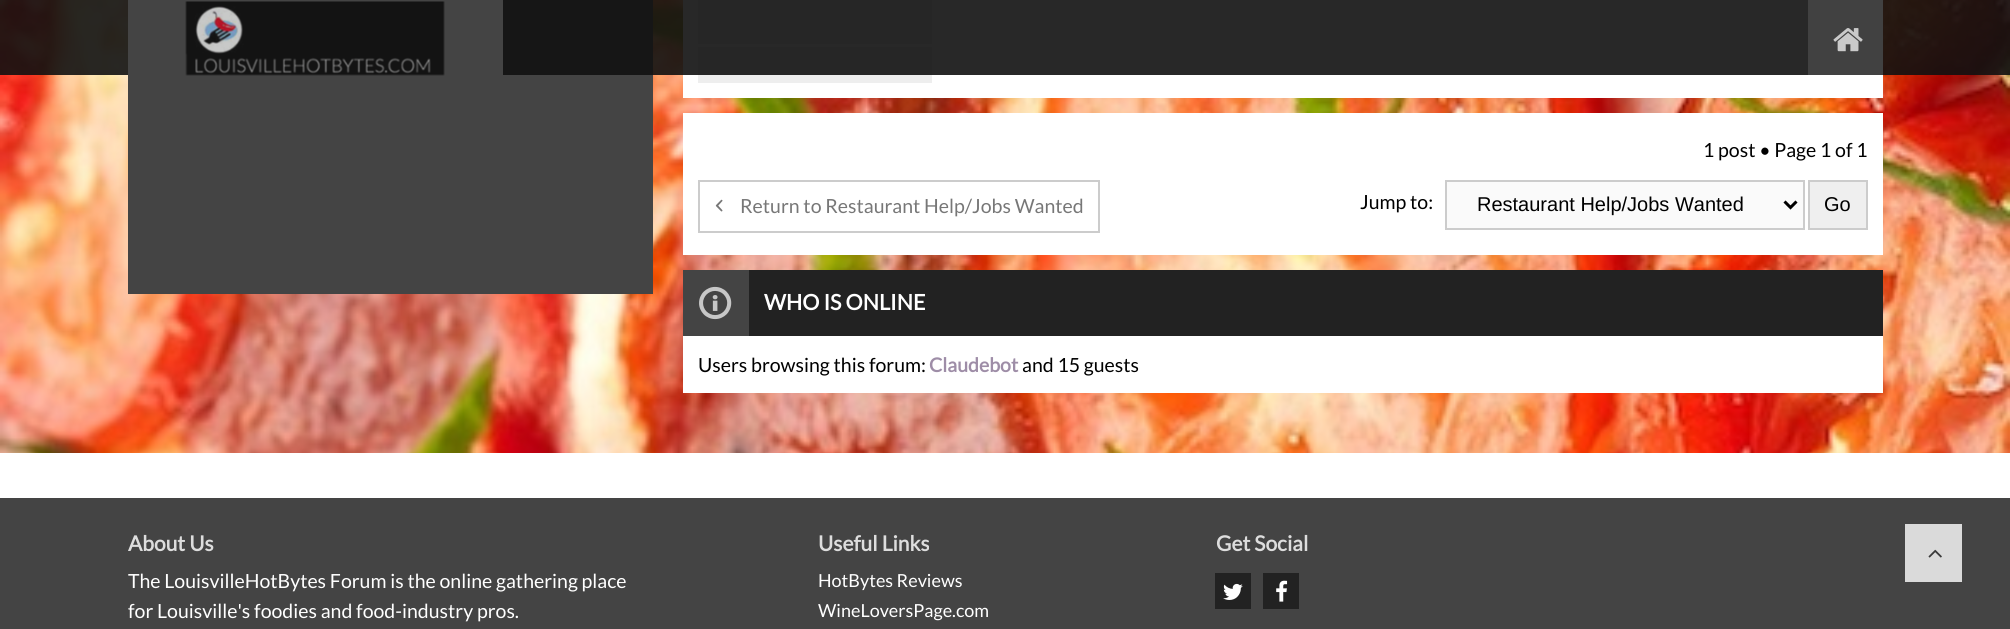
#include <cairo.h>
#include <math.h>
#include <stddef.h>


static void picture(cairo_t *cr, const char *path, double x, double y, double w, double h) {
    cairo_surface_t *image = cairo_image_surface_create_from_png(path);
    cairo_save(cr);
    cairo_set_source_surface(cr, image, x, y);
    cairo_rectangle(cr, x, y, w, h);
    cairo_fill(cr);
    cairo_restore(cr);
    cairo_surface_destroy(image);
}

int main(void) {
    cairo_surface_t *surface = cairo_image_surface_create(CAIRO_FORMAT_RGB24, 2010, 629);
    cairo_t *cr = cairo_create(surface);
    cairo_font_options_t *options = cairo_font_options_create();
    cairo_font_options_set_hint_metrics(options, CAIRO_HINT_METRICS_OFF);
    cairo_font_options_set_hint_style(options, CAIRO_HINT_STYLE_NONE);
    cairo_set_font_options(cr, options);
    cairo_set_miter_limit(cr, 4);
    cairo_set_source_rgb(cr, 1, 1, 1);
    cairo_paint(cr);
    picture(cr, "img3.png", 0, 0, 2010, 453);
    cairo_set_source_rgb(cr, 0.267, 0.267, 0.267);
    cairo_rectangle(cr, 128, 0, 525, 294);
    cairo_fill(cr);
    cairo_set_source_rgb(cr, 1, 1, 1);
    cairo_rectangle(cr, 683, 0, 1200, 98);
    cairo_fill(cr);
    cairo_set_source_rgb(cr, 0.933, 0.933, 0.933);
    cairo_rectangle(cr, 698, 0, 234, 44);
    cairo_fill(cr);
    cairo_rectangle(cr, 698, 47, 234, 36);
    cairo_fill(cr);
    cairo_set_source_rgba(cr, 0.067, 0.067, 0.067, 0.9);
    cairo_rectangle(cr, 0, 0, 2010, 75);
    cairo_fill(cr);
    cairo_set_source_rgb(cr, 0.267, 0.267, 0.267);
    cairo_rectangle(cr, 128, 0, 375, 75);
    cairo_fill(cr);
    picture(cr, "img1.png", 185, 1, 260, 75);
    cairo_set_source_rgba(cr, 0.267, 0.267, 0.267, 0.9);
    cairo_rectangle(cr, 1808, 0, 75, 75);
    cairo_fill(cr);
    picture(cr, "img2.png", 1833, 28, 30, 24);
    cairo_set_source_rgb(cr, 1, 1, 1);
    cairo_rectangle(cr, 683, 113, 1200, 142);
    cairo_fill(cr);
    cairo_select_font_face(cr, "Lato", CAIRO_FONT_SLANT_NORMAL, CAIRO_FONT_WEIGHT_NORMAL);
    cairo_set_font_size(cr, 19.5);
    cairo_set_source_rgb(cr, 0, 0, 0);
    cairo_move_to(cr, 1703, 157);
    cairo_show_text(cr, "1 post • Page 1 of 1");
    cairo_rectangle(cr, 699, 181, 400, 51);
    cairo_set_source_rgb(cr, 0.8, 0.8, 0.8);
    cairo_stroke(cr);
    picture(cr, "img4.png", 715, 199, 8, 13);
    cairo_set_source_rgb(cr, 0.467, 0.467, 0.467);
    cairo_move_to(cr, 740, 213);
    cairo_show_text(cr, "Return to Restaurant Help/Jobs Wanted");
    cairo_set_source_rgb(cr, 0, 0, 0);
    cairo_move_to(cr, 1360, 209);
    cairo_show_text(cr, "Jump to:");
    cairo_set_source_rgb(cr, 0.98, 0.98, 0.98);
    cairo_rectangle(cr, 1446, 181, 358, 48);
    cairo_fill_preserve(cr);
    cairo_set_source_rgb(cr, 0.8, 0.8, 0.8);
    cairo_stroke(cr);
    cairo_new_path(cr);
    cairo_move_to(cr, 1784.5, 201.5);
    cairo_line_to(cr, 1790.5, 207.5);
    cairo_line_to(cr, 1796.5, 201.5);
    cairo_set_source_rgb(cr, 0, 0, 0);
    cairo_set_line_width(cr, 3);
    cairo_stroke(cr);
    cairo_select_font_face(cr, "Liberation Sans", CAIRO_FONT_SLANT_NORMAL, CAIRO_FONT_WEIGHT_NORMAL);
    cairo_set_font_size(cr, 20);
    cairo_move_to(cr, 1477, 211);
    cairo_show_text(cr, "Restaurant Help/Jobs Wanted");
    cairo_set_source_rgb(cr, 0.937, 0.937, 0.937);
    cairo_rectangle(cr, 1809, 181, 58, 48);
    cairo_fill_preserve(cr);
    cairo_set_source_rgb(cr, 0.8, 0.8, 0.8);
    cairo_set_line_width(cr, 2);
    cairo_stroke(cr);
    cairo_set_source_rgb(cr, 0, 0, 0);
    cairo_move_to(cr, 1824, 211);
    cairo_show_text(cr, "Go");
    cairo_set_source_rgb(cr, 0.133, 0.133, 0.133);
    cairo_rectangle(cr, 749, 270, 1134, 66);
    cairo_fill(cr);
    cairo_set_source_rgb(cr, 0.267, 0.267, 0.267);
    cairo_rectangle(cr, 683, 270, 66, 66);
    cairo_fill(cr);
    picture(cr, "img5.png", 699, 286, 33, 34);
    cairo_select_font_face(cr, "Lato", CAIRO_FONT_SLANT_NORMAL, CAIRO_FONT_WEIGHT_BOLD);
    cairo_set_font_size(cr, 21.5);
    cairo_set_source_rgb(cr, 1, 1, 1);
    cairo_move_to(cr, 764, 310);
    cairo_show_text(cr, "WHO IS ONLINE");
    cairo_rectangle(cr, 683, 336, 1200, 57);
    cairo_fill(cr);
    cairo_select_font_face(cr, "Lato", CAIRO_FONT_SLANT_NORMAL, CAIRO_FONT_WEIGHT_NORMAL);
    cairo_set_font_size(cr, 19.5);
    cairo_set_source_rgb(cr, 0, 0, 0);
    cairo_move_to(cr, 698, 372);
    cairo_show_text(cr, "Users browsing this forum:");
    cairo_select_font_face(cr, "Lato", CAIRO_FONT_SLANT_NORMAL, CAIRO_FONT_WEIGHT_BOLD);
    cairo_set_source_rgb(cr, 0.62, 0.553, 0.655);
    cairo_move_to(cr, 929, 372);
    cairo_show_text(cr, "Claudebot");
    cairo_select_font_face(cr, "Lato", CAIRO_FONT_SLANT_NORMAL, CAIRO_FONT_WEIGHT_NORMAL);
    cairo_set_source_rgb(cr, 0, 0, 0);
    cairo_move_to(cr, 1022, 372);
    cairo_show_text(cr, "and 15 guests");
    cairo_set_source_rgb(cr, 0.267, 0.267, 0.267);
    cairo_rectangle(cr, 0, 498, 2010, 131);
    cairo_fill(cr);
    cairo_select_font_face(cr, "Lato", CAIRO_FONT_SLANT_NORMAL, CAIRO_FONT_WEIGHT_BOLD);
    cairo_set_font_size(cr, 21);
    cairo_set_source_rgb(cr, 0.867, 0.867, 0.867);
    cairo_move_to(cr, 128, 551);
    cairo_show_text(cr, "About Us");
    cairo_select_font_face(cr, "Lato", CAIRO_FONT_SLANT_NORMAL, CAIRO_FONT_WEIGHT_NORMAL);
    cairo_set_font_size(cr, 19.5);
    cairo_set_source_rgb(cr, 1, 1, 1);
    cairo_move_to(cr, 128, 588);
    cairo_show_text(cr, "The LouisvilleHotBytes Forum is the online gathering place");
    cairo_move_to(cr, 128, 618);
    cairo_show_text(cr, "for Louisville's foodies and food-industry pros.");
    cairo_select_font_face(cr, "Lato", CAIRO_FONT_SLANT_NORMAL, CAIRO_FONT_WEIGHT_BOLD);
    cairo_set_font_size(cr, 21);
    cairo_set_source_rgb(cr, 0.867, 0.867, 0.867);
    cairo_move_to(cr, 818, 551);
    cairo_show_text(cr, "Useful Links");
    cairo_select_font_face(cr, "Lato", CAIRO_FONT_SLANT_NORMAL, CAIRO_FONT_WEIGHT_NORMAL);
    cairo_set_font_size(cr, 18);
    cairo_set_source_rgb(cr, 1, 1, 1);
    cairo_move_to(cr, 818, 587);
    cairo_show_text(cr, "HotBytes Reviews");
    cairo_move_to(cr, 818, 617);
    cairo_show_text(cr, "WineLoversPage.com");
    cairo_select_font_face(cr, "Lato", CAIRO_FONT_SLANT_NORMAL, CAIRO_FONT_WEIGHT_BOLD);
    cairo_set_font_size(cr, 21);
    cairo_set_source_rgb(cr, 0.867, 0.867, 0.867);
    cairo_move_to(cr, 1216, 551);
    cairo_show_text(cr, "Get Social");
    cairo_set_source_rgb(cr, 0.133, 0.133, 0.133);
    cairo_rectangle(cr, 1215, 573, 36, 36);
    cairo_fill(cr);
    picture(cr, "img6.png", 1223, 583, 20, 17);
    cairo_rectangle(cr, 1263, 573, 36, 36);
    cairo_fill(cr);
    picture(cr, "img7.png", 1276, 580, 12, 22);
    cairo_set_source_rgb(cr, 0.855, 0.855, 0.855);
    cairo_rectangle(cr, 1905, 524, 57, 58);
    cairo_fill(cr);
    picture(cr, "img8.png", 1928, 549, 14, 9);
    cairo_surface_write_to_png(surface, "page.png");
    cairo_font_options_destroy(options);
    cairo_destroy(cr);
    cairo_surface_destroy(surface);
    return 0;
}
